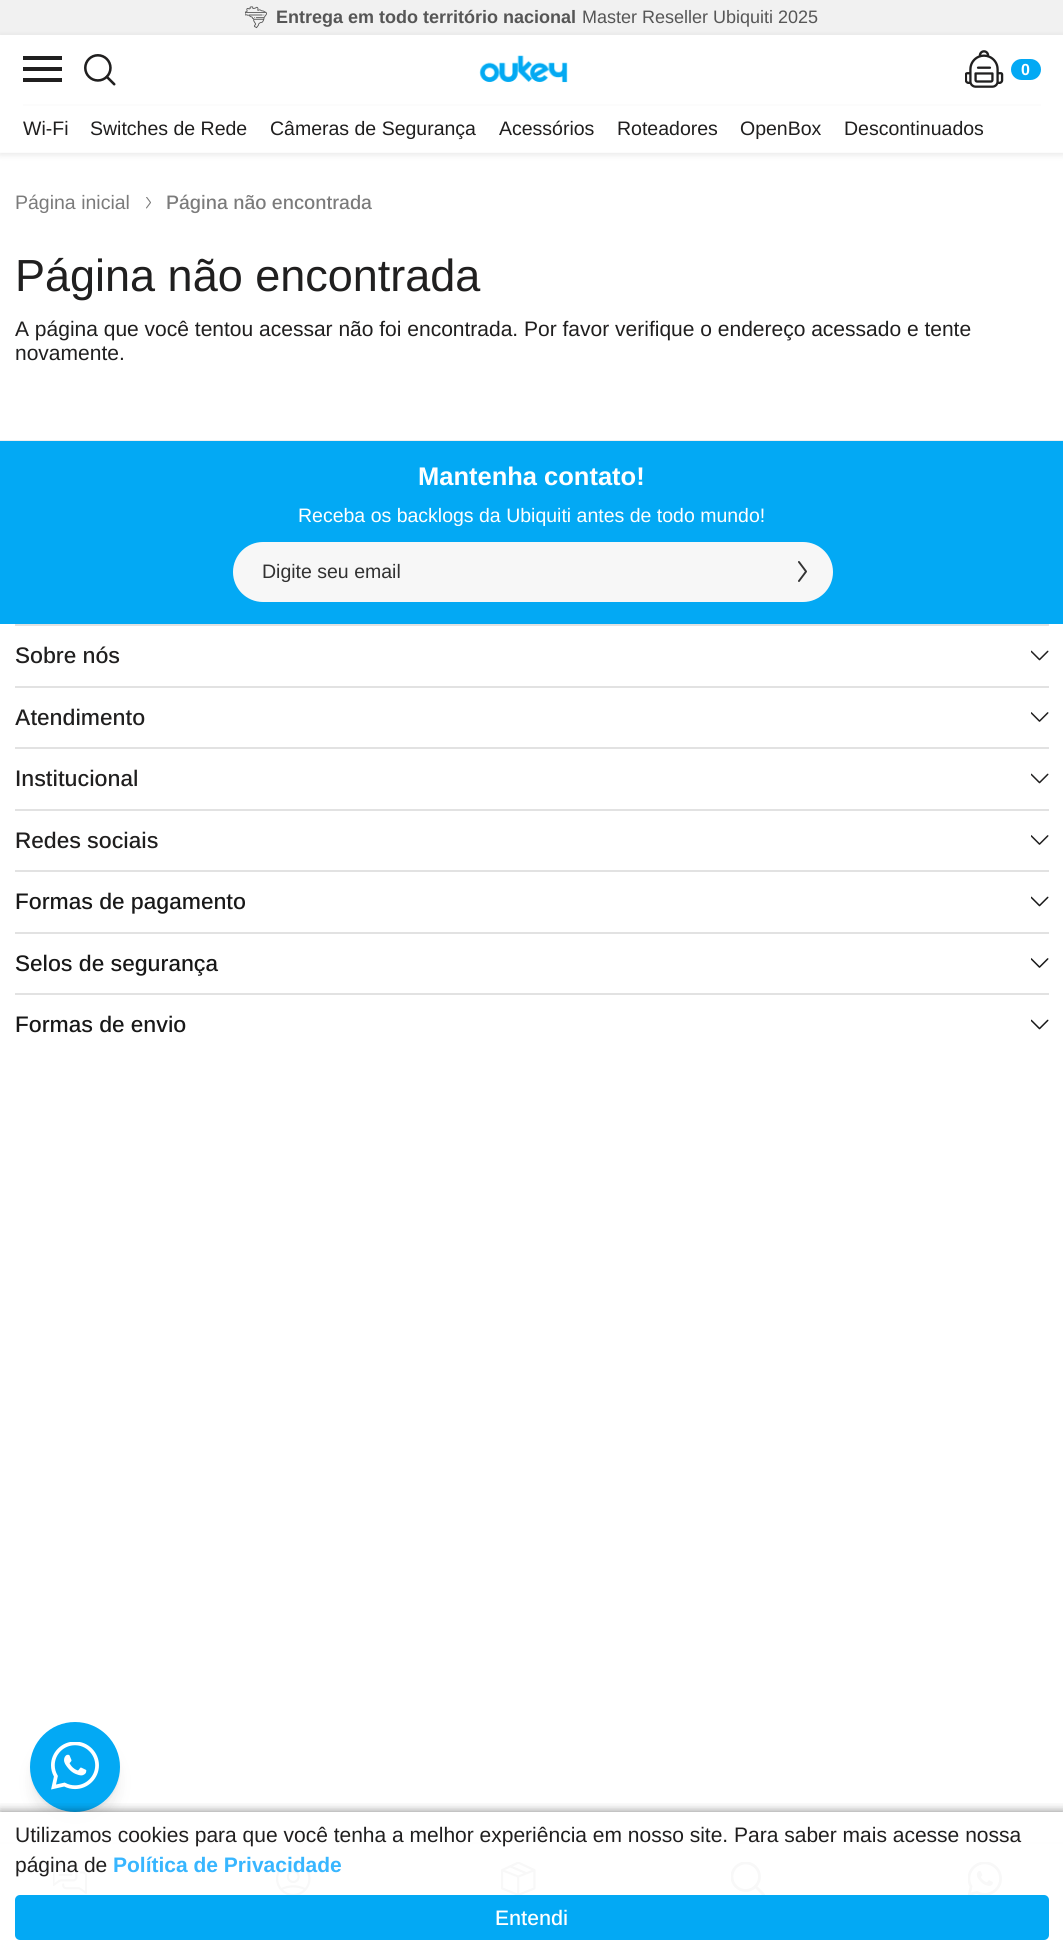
#include <cairo.h>
#include <math.h>
#include <stddef.h>


static void round_rect(cairo_t *cr, double x, double y, double w, double h, double r) {
    cairo_new_sub_path(cr);
    cairo_arc(cr, x + w - r, y + h - r, r, 0, M_PI / 2);
    cairo_arc(cr, x + r, y + h - r, r, M_PI / 2, M_PI);
    cairo_arc(cr, x + r, y + r, r, M_PI, 1.5 * M_PI);
    cairo_arc(cr, x + w - r, y + r, r, 1.5 * M_PI, 2 * M_PI);
    cairo_close_path(cr);
}

static void shadow(cairo_t *cr, double x, double y, double w, double h, double r, double blur, double alpha) {
    cairo_push_group_with_content(cr, CAIRO_CONTENT_ALPHA);
    cairo_set_operator(cr, CAIRO_OPERATOR_SOURCE);
    for (int i = 15; i >= -15 && fmin(w, h) + blur * i / 3 > 0; i -= 2) {
        double e = blur * i / 6;
        cairo_set_source_rgba(cr, 0, 0, 0, alpha * erfc((i - 1) / 8.5) / 2);
        round_rect(cr, x - e, y - e, w + 2 * e, h + 2 * e, fmax(0, fmin(r + e + blur * .6, fmin(w, h) / 2 + e)));
        cairo_fill(cr);
    }
    cairo_pattern_t *soft = cairo_pop_group(cr);
    cairo_mask(cr, soft);
    cairo_pattern_destroy(soft);
}

static void picture(cairo_t *cr, const char *path, double x, double y, double w, double h) {
    cairo_surface_t *image = cairo_image_surface_create_from_png(path);
    cairo_save(cr);
    cairo_set_source_surface(cr, image, x, y);
    cairo_rectangle(cr, x, y, w, h);
    cairo_fill(cr);
    cairo_restore(cr);
    cairo_surface_destroy(image);
}

int main(void) {
    cairo_surface_t *surface = cairo_image_surface_create(CAIRO_FORMAT_RGB24, 1063, 1947);
    cairo_t *cr = cairo_create(surface);
    cairo_font_options_t *options = cairo_font_options_create();
    cairo_font_options_set_hint_metrics(options, CAIRO_HINT_METRICS_OFF);
    cairo_font_options_set_hint_style(options, CAIRO_HINT_STYLE_NONE);
    cairo_set_font_options(cr, options);
    cairo_set_miter_limit(cr, 4);
    cairo_set_source_rgb(cr, 1, 1, 1);
    cairo_paint(cr);
    cairo_set_source_rgb(cr, 0.945, 0.945, 0.945);
    cairo_rectangle(cr, 0, 0, 1063, 35);
    cairo_fill(cr);
    picture(cr, "img1.png", 245, 6, 22, 23);
    cairo_select_font_face(cr, "Arimo", CAIRO_FONT_SLANT_NORMAL, CAIRO_FONT_WEIGHT_BOLD);
    cairo_set_font_size(cr, 18);
    cairo_set_source_rgb(cr, 0.337, 0.337, 0.337);
    cairo_move_to(cr, 276, 23);
    cairo_show_text(cr, "Entrega em todo território nacional");
    cairo_select_font_face(cr, "Arimo", CAIRO_FONT_SLANT_NORMAL, CAIRO_FONT_WEIGHT_NORMAL);
    cairo_move_to(cr, 582, 23);
    cairo_show_text(cr, "Master Reseller Ubiquiti 2025");
    cairo_save(cr);
    cairo_set_fill_rule(cr, CAIRO_FILL_RULE_EVEN_ODD);
    cairo_new_path(cr);
    cairo_move_to(cr, 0, 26);
    cairo_line_to(cr, 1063, 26);
    cairo_line_to(cr, 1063, 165);
    cairo_line_to(cr, 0, 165);
    cairo_close_path(cr);
    cairo_move_to(cr, 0, 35);
    cairo_line_to(cr, 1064, 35);
    cairo_line_to(cr, 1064, 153);
    cairo_line_to(cr, 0, 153);
    cairo_close_path(cr);
    cairo_clip(cr);
    cairo_set_source_rgb(cr, 0.322, 0.322, 0.322);
    shadow(cr, 0, 36, 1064, 119, 0, 3, 0.13);
    cairo_restore(cr);
    cairo_set_source_rgba(cr, 0.937, 0.937, 0.937, 0.19);
    cairo_rectangle(cr, 0, 152, 1063, 1);
    cairo_fill(cr);
    cairo_set_source_rgb(cr, 0.125, 0.122, 0.122);
    cairo_rectangle(cr, 23, 78, 39, 4);
    cairo_fill(cr);
    cairo_rectangle(cr, 23, 67, 39, 4);
    cairo_fill(cr);
    cairo_rectangle(cr, 23, 56, 39, 4);
    cairo_fill(cr);
    picture(cr, "img2.png", 84, 54, 32, 32);
    picture(cr, "img3.png", 479, 55, 89, 28);
    picture(cr, "img4.png", 965, 50, 39, 38);
    cairo_set_source_rgb(cr, 0.012, 0.663, 0.957);
    round_rect(cr, 1011, 59, 30, 21, 10.5);
    cairo_fill(cr);
    cairo_select_font_face(cr, "Arimo", CAIRO_FONT_SLANT_NORMAL, CAIRO_FONT_WEIGHT_BOLD);
    cairo_set_font_size(cr, 16);
    cairo_set_source_rgb(cr, 1, 1, 1);
    cairo_move_to(cr, 1021, 75);
    cairo_show_text(cr, "0");
    cairo_set_source_rgb(cr, 0.988, 0.988, 0.988);
    cairo_rectangle(cr, 23, 104, 1018, 2);
    cairo_fill(cr);
    cairo_select_font_face(cr, "Arimo", CAIRO_FONT_SLANT_NORMAL, CAIRO_FONT_WEIGHT_NORMAL);
    cairo_set_font_size(cr, 19.5);
    cairo_set_source_rgb(cr, 0.125, 0.122, 0.122);
    cairo_move_to(cr, 23, 135);
    cairo_show_text(cr, "Wi-Fi");
    cairo_move_to(cr, 90, 135);
    cairo_show_text(cr, "Switches de Rede");
    cairo_move_to(cr, 270, 135);
    cairo_show_text(cr, "Câmeras de Segurança");
    cairo_move_to(cr, 499, 135);
    cairo_show_text(cr, "Acessórios");
    cairo_move_to(cr, 617, 135);
    cairo_show_text(cr, "Roteadores");
    cairo_move_to(cr, 740, 135);
    cairo_show_text(cr, "OpenBox");
    cairo_move_to(cr, 844, 135);
    cairo_show_text(cr, "Descontinuados");
    cairo_set_source_rgb(cr, 0.482, 0.482, 0.482);
    cairo_move_to(cr, 15, 209);
    cairo_show_text(cr, "Página inicial");
    picture(cr, "img5.png", 146, 197, 5, 12);
    cairo_select_font_face(cr, "Arimo Medium", CAIRO_FONT_SLANT_NORMAL, CAIRO_FONT_WEIGHT_NORMAL);
    cairo_move_to(cr, 166, 209);
    cairo_show_text(cr, "Página não encontrada");
    cairo_select_font_face(cr, "Arimo", CAIRO_FONT_SLANT_NORMAL, CAIRO_FONT_WEIGHT_NORMAL);
    cairo_set_font_size(cr, 45);
    cairo_set_source_rgb(cr, 0.125, 0.122, 0.122);
    cairo_move_to(cr, 15, 291);
    cairo_show_text(cr, "Página não encontrada");
    cairo_set_font_size(cr, 21);
    cairo_move_to(cr, 15, 336);
    cairo_show_text(cr, "A página que você tentou acessar não foi encontrada. Por favor verifique o endereço acessado e tente");
    cairo_move_to(cr, 15, 360);
    cairo_show_text(cr, "novamente.");
    cairo_set_source_rgb(cr, 0.937, 0.937, 0.937);
    cairo_rectangle(cr, 0, 440, 1063, 1);
    cairo_fill(cr);
    cairo_set_source_rgb(cr, 0.012, 0.663, 0.957);
    cairo_rectangle(cr, 0, 441, 1063, 183);
    cairo_fill(cr);
    cairo_select_font_face(cr, "Arimo", CAIRO_FONT_SLANT_NORMAL, CAIRO_FONT_WEIGHT_BOLD);
    cairo_set_font_size(cr, 25.5);
    cairo_set_source_rgb(cr, 1, 1, 1);
    cairo_move_to(cr, 418, 485);
    cairo_show_text(cr, "Mantenha contato!");
    cairo_select_font_face(cr, "Arimo", CAIRO_FONT_SLANT_NORMAL, CAIRO_FONT_WEIGHT_NORMAL);
    cairo_set_font_size(cr, 19.5);
    cairo_move_to(cr, 298, 522);
    cairo_show_text(cr, "Receba os backlogs da Ubiquiti antes de todo mundo!");
    cairo_set_source_rgb(cr, 0.965, 0.965, 0.965);
    round_rect(cr, 233, 542, 600, 60, 30);
    cairo_fill(cr);
    cairo_set_source_rgb(cr, 0.196, 0.196, 0.196);
    cairo_move_to(cr, 262, 578);
    cairo_show_text(cr, "Digite seu email");
    picture(cr, "img6.png", 798, 561, 9, 21);
    cairo_set_source_rgb(cr, 0.886, 0.886, 0.886);
    cairo_rectangle(cr, 15, 624, 1034, 2);
    cairo_fill(cr);
    cairo_select_font_face(cr, "Arimo Medium", CAIRO_FONT_SLANT_NORMAL, CAIRO_FONT_WEIGHT_NORMAL);
    cairo_set_font_size(cr, 22.5);
    cairo_set_source_rgb(cr, 0.125, 0.122, 0.122);
    cairo_move_to(cr, 15, 663);
    cairo_show_text(cr, "Sobre nós");
    picture(cr, "img7.png", 1031, 650, 18, 11);
    cairo_set_source_rgb(cr, 0.886, 0.886, 0.886);
    cairo_rectangle(cr, 15, 686, 1034, 2);
    cairo_fill(cr);
    cairo_set_source_rgb(cr, 0.125, 0.122, 0.122);
    cairo_move_to(cr, 15, 725);
    cairo_show_text(cr, "Atendimento");
    picture(cr, "img8.png", 1031, 712, 18, 10);
    cairo_set_source_rgb(cr, 0.886, 0.886, 0.886);
    cairo_rectangle(cr, 15, 747, 1034, 2);
    cairo_fill(cr);
    cairo_set_source_rgb(cr, 0.125, 0.122, 0.122);
    cairo_move_to(cr, 15, 786);
    cairo_show_text(cr, "Institucional");
    picture(cr, "img7.png", 1031, 773, 18, 11);
    cairo_set_source_rgb(cr, 0.886, 0.886, 0.886);
    cairo_rectangle(cr, 15, 809, 1034, 2);
    cairo_fill(cr);
    cairo_set_source_rgb(cr, 0.125, 0.122, 0.122);
    cairo_move_to(cr, 15, 848);
    cairo_show_text(cr, "Redes sociais");
    picture(cr, "img8.png", 1031, 835, 18, 10);
    cairo_set_source_rgb(cr, 0.886, 0.886, 0.886);
    cairo_rectangle(cr, 15, 870, 1034, 2);
    cairo_fill(cr);
    cairo_set_source_rgb(cr, 0.094, 0.094, 0.094);
    cairo_move_to(cr, 15, 909);
    cairo_show_text(cr, "Formas de pagamento");
    picture(cr, "img9.png", 1031, 896, 18, 11);
    cairo_set_source_rgb(cr, 0.886, 0.886, 0.886);
    cairo_rectangle(cr, 15, 932, 1034, 2);
    cairo_fill(cr);
    cairo_set_source_rgb(cr, 0.094, 0.094, 0.094);
    cairo_move_to(cr, 15, 971);
    cairo_show_text(cr, "Selos de segurança");
    picture(cr, "img10.png", 1031, 958, 18, 10);
    cairo_set_source_rgb(cr, 0.886, 0.886, 0.886);
    cairo_rectangle(cr, 15, 993, 1034, 2);
    cairo_fill(cr);
    cairo_set_source_rgb(cr, 0.094, 0.094, 0.094);
    cairo_move_to(cr, 15, 1032);
    cairo_show_text(cr, "Formas de envio");
    picture(cr, "img9.png", 1031, 1019, 18, 11);
    cairo_set_source_rgb(cr, 0.404, 0.404, 0.404);
    shadow(cr, 30, 1737, 90, 90, 45, 6, 0.1);
    cairo_set_source_rgb(cr, 0, 0, 0);
    shadow(cr, 30, 1725, 90, 90, 45, 1, 0.04);
    cairo_set_source_rgb(cr, 0.012, 0.663, 0.957);
    cairo_arc(cr, 75, 1767, 45, 0, 2 * M_PI);
    cairo_fill(cr);
    picture(cr, "img11.png", 51, 1742, 48, 48);
    cairo_set_source_rgb(cr, 0.886, 0.886, 0.886);
    cairo_rectangle(cr, 0, 1842, 1063, 2);
    cairo_fill(cr);
    picture(cr, "img12.png", 53, 1863, 34, 31);
    picture(cr, "img13.png", 276, 1862, 35, 33);
    picture(cr, "img14.png", 501, 1862, 35, 33);
    picture(cr, "img15.png", 731, 1862, 34, 33);
    picture(cr, "img16.png", 968, 1862, 34, 33);
    cairo_save(cr);
    cairo_rectangle(cr, 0, 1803, 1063, 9);
    cairo_clip(cr);
    cairo_set_source_rgb(cr, 0, 0, 0);
    shadow(cr, 0, 1812, 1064, 135, 0, 5, 0.5);
    cairo_restore(cr);
    cairo_set_source_rgba(cr, 1, 1, 1, 0.95);
    cairo_rectangle(cr, 0, 1812, 1063, 83);
    cairo_fill(cr);
    cairo_select_font_face(cr, "Arimo", CAIRO_FONT_SLANT_NORMAL, CAIRO_FONT_WEIGHT_NORMAL);
    cairo_set_font_size(cr, 21);
    cairo_set_source_rgb(cr, 0.125, 0.122, 0.122);
    cairo_move_to(cr, 15, 1842);
    cairo_show_text(cr, "Utilizamos cookies para que você tenha a melhor experiência em nosso site. Para saber mais acesse nossa");
    cairo_move_to(cr, 15, 1872);
    cairo_show_text(cr, "página de");
    cairo_select_font_face(cr, "Arimo", CAIRO_FONT_SLANT_NORMAL, CAIRO_FONT_WEIGHT_BOLD);
    cairo_set_source_rgb(cr, 0.22, 0.714, 1);
    cairo_move_to(cr, 113, 1872);
    cairo_show_text(cr, "Política de Privacidade");
    cairo_set_source_rgb(cr, 0.012, 0.663, 0.957);
    round_rect(cr, 15, 1895, 1034, 45, 5);
    cairo_fill(cr);
    cairo_select_font_face(cr, "Arimo Medium", CAIRO_FONT_SLANT_NORMAL, CAIRO_FONT_WEIGHT_NORMAL);
    cairo_set_source_rgb(cr, 1, 1, 1);
    cairo_move_to(cr, 495, 1925);
    cairo_show_text(cr, "Entendi");
    cairo_surface_write_to_png(surface, "page.png");
    cairo_font_options_destroy(options);
    cairo_destroy(cr);
    cairo_surface_destroy(surface);
    return 0;
}
